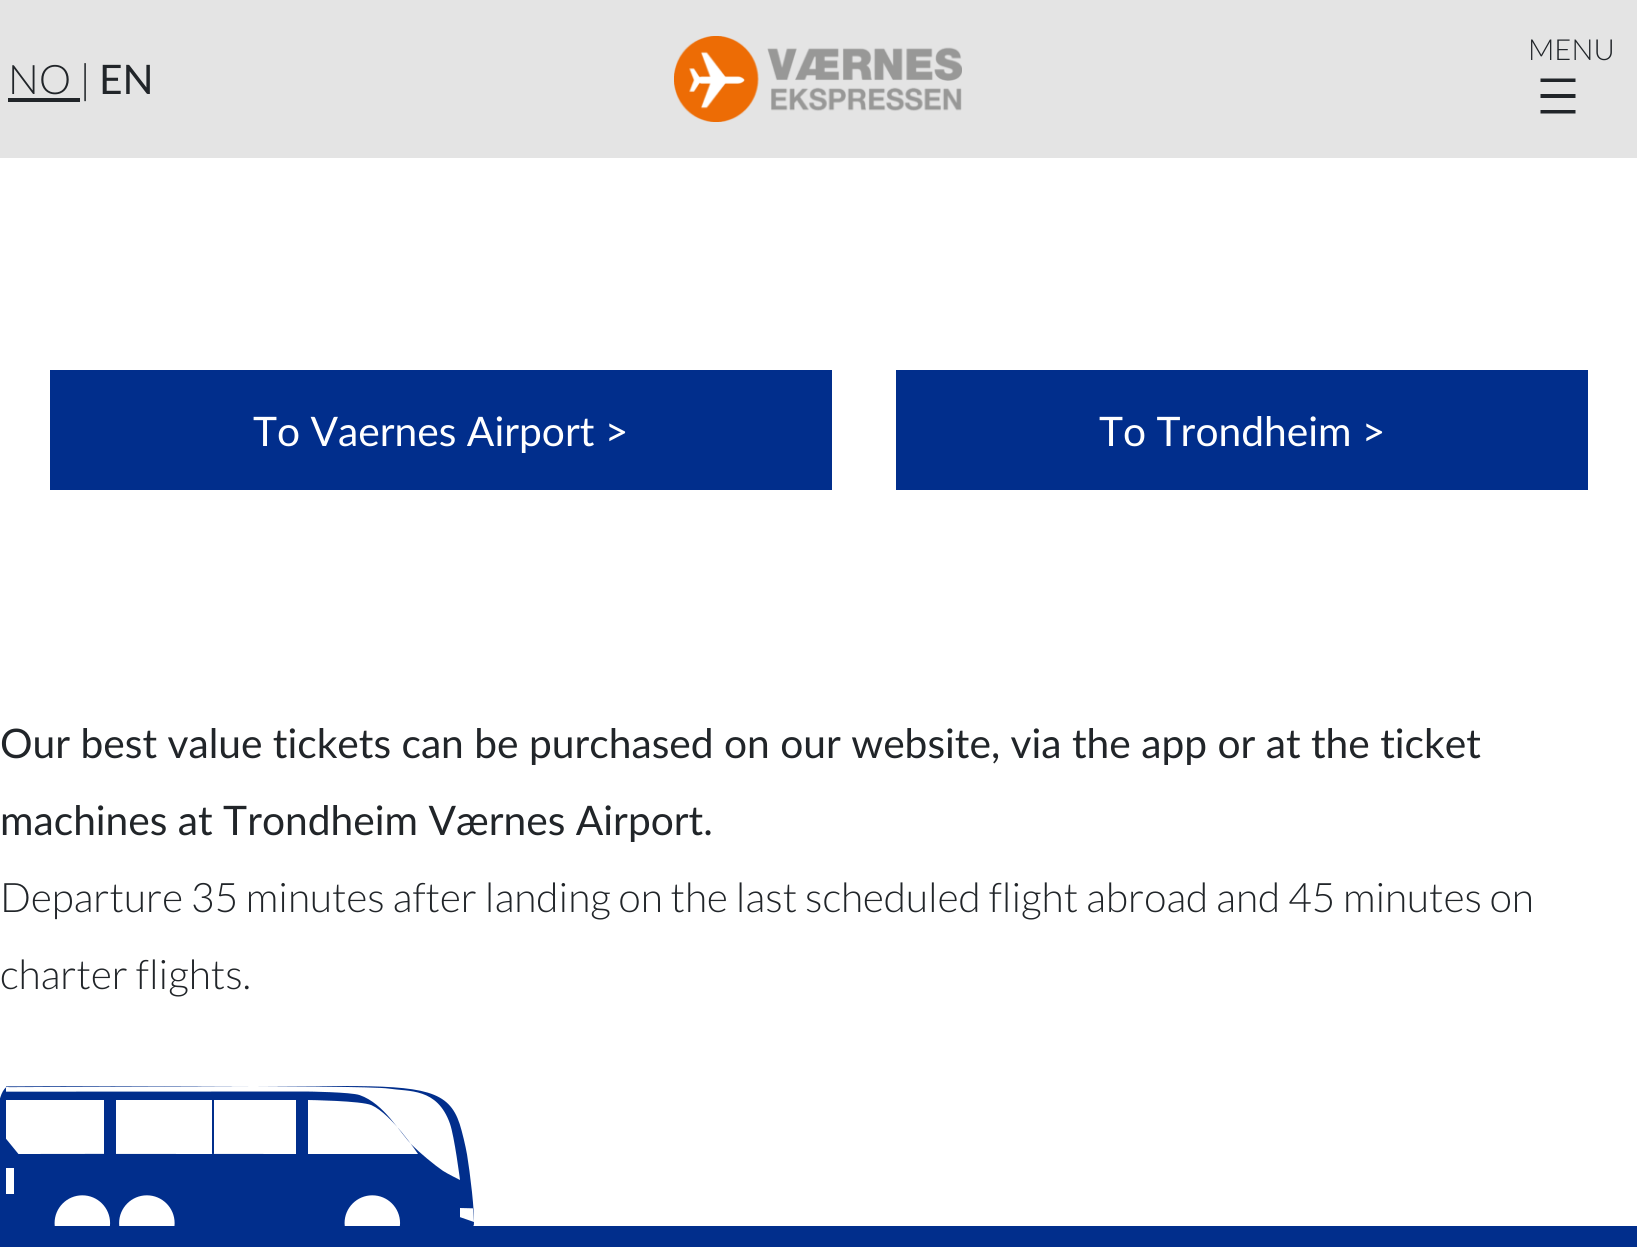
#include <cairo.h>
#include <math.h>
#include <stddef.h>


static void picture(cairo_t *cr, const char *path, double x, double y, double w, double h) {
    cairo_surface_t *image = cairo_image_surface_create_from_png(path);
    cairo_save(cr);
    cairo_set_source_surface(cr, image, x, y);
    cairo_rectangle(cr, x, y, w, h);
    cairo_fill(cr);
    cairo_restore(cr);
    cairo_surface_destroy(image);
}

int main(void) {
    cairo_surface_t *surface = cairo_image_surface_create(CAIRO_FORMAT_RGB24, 1637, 1247);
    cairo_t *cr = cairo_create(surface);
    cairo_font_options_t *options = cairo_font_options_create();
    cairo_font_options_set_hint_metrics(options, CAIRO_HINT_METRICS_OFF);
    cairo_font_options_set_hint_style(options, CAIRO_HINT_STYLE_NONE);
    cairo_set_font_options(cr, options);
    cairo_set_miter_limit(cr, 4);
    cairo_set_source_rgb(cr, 1, 1, 1);
    cairo_paint(cr);
    cairo_set_source_rgb(cr, 0.894, 0.894, 0.894);
    cairo_rectangle(cr, 0, 0, 1637, 158);
    cairo_fill(cr);
    picture(cr, "img1.png", 674, 36, 288, 86);
    cairo_select_font_face(cr, "Lato Light", CAIRO_FONT_SLANT_NORMAL, CAIRO_FONT_WEIGHT_NORMAL);
    cairo_set_font_size(cr, 29);
    cairo_set_source_rgb(cr, 0.129, 0.145, 0.161);
    cairo_move_to(cr, 1528, 60);
    cairo_show_text(cr, "MENU");
    cairo_new_path(cr);
    cairo_move_to(cr, 1540.5, 78.5);
    cairo_line_to(cr, 1540.5, 82);
    cairo_line_to(cr, 1575.5, 82);
    cairo_line_to(cr, 1575.5, 78.5);
    cairo_close_path(cr);
    cairo_move_to(cr, 1540.5, 98);
    cairo_line_to(cr, 1575.5, 98);
    cairo_line_to(cr, 1575.5, 94);
    cairo_line_to(cr, 1540.5, 94);
    cairo_close_path(cr);
    cairo_move_to(cr, 1540.5, 113.5);
    cairo_line_to(cr, 1575.5, 113.5);
    cairo_line_to(cr, 1575.5, 110);
    cairo_line_to(cr, 1540.5, 110);
    cairo_close_path(cr);
    cairo_fill(cr);
    cairo_rectangle(cr, 8, 98, 72, 4);
    cairo_fill(cr);
    cairo_set_font_size(cr, 40.7);
    cairo_move_to(cr, 8, 94);
    cairo_show_text(cr, "NO |");
    cairo_select_font_face(cr, "Lato", CAIRO_FONT_SLANT_NORMAL, CAIRO_FONT_WEIGHT_NORMAL);
    cairo_move_to(cr, 99, 94);
    cairo_show_text(cr, "EN");
    cairo_set_source_rgb(cr, 0.004, 0.18, 0.549);
    cairo_rectangle(cr, 50, 370, 782, 120);
    cairo_fill(cr);
    cairo_set_source_rgb(cr, 1, 1, 1);
    cairo_move_to(cr, 253, 446);
    cairo_show_text(cr, "To Vaernes Airport >");
    cairo_set_source_rgb(cr, 0.004, 0.18, 0.549);
    cairo_rectangle(cr, 896, 370, 692, 120);
    cairo_fill(cr);
    cairo_set_source_rgb(cr, 1, 1, 1);
    cairo_move_to(cr, 1099, 446);
    cairo_show_text(cr, "To Trondheim >");
    cairo_set_source_rgb(cr, 0.129, 0.145, 0.161);
    cairo_move_to(cr, 0, 758);
    cairo_show_text(cr, "Our best value tickets can be purchased on our website, via the app or at the ticket");
    cairo_move_to(cr, 0, 835);
    cairo_show_text(cr, "machines at Trondheim Værnes Airport.");
    cairo_select_font_face(cr, "Lato Light", CAIRO_FONT_SLANT_NORMAL, CAIRO_FONT_WEIGHT_NORMAL);
    cairo_move_to(cr, 0, 912);
    cairo_show_text(cr, "Departure 35 minutes after landing on the last scheduled flight abroad and 45 minutes on");
    cairo_move_to(cr, 0, 989);
    cairo_show_text(cr, "charter flights.");
    picture(cr, "img2.png", 0, 1086, 474, 140);
    cairo_set_source_rgb(cr, 0.004, 0.18, 0.549);
    cairo_rectangle(cr, 0, 1226, 1637, 21);
    cairo_fill(cr);
    cairo_surface_write_to_png(surface, "page.png");
    cairo_font_options_destroy(options);
    cairo_destroy(cr);
    cairo_surface_destroy(surface);
    return 0;
}
